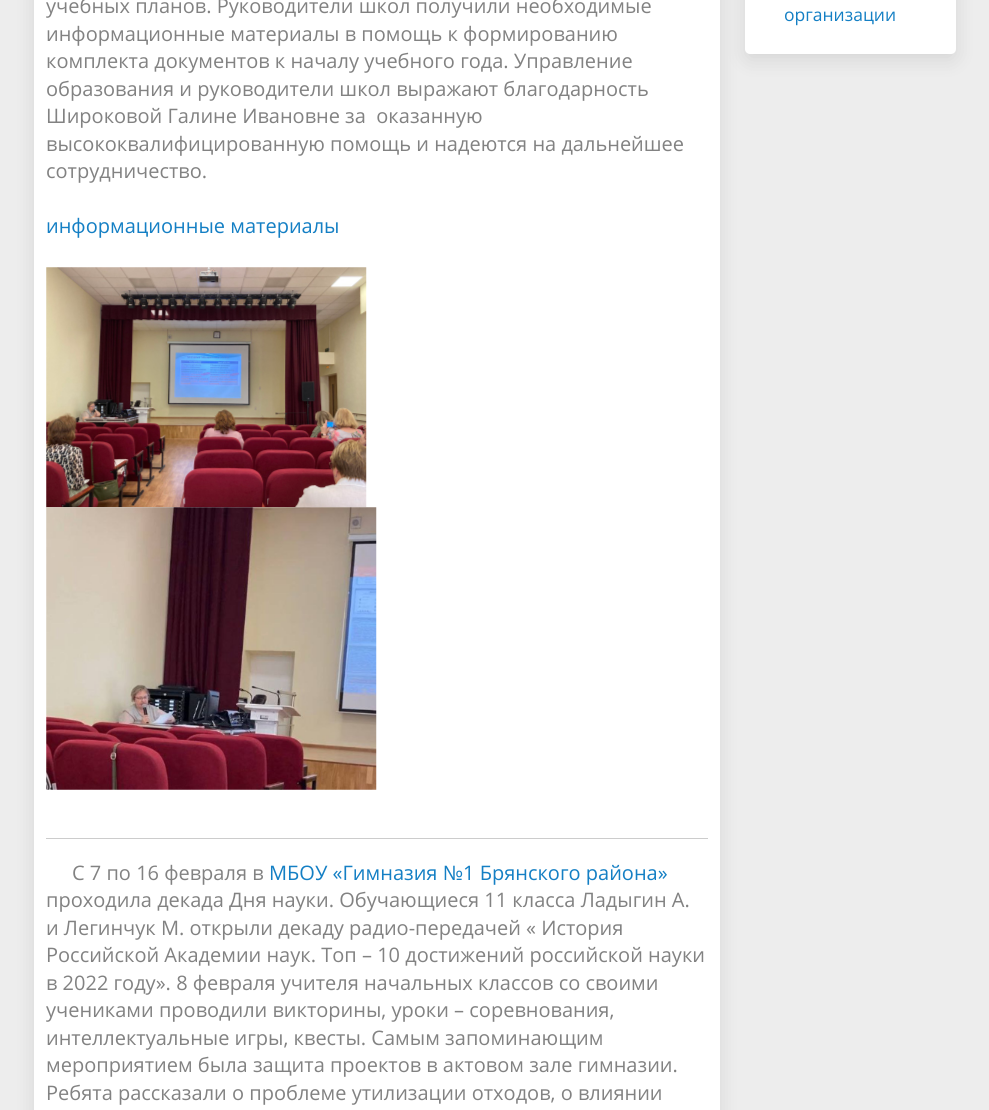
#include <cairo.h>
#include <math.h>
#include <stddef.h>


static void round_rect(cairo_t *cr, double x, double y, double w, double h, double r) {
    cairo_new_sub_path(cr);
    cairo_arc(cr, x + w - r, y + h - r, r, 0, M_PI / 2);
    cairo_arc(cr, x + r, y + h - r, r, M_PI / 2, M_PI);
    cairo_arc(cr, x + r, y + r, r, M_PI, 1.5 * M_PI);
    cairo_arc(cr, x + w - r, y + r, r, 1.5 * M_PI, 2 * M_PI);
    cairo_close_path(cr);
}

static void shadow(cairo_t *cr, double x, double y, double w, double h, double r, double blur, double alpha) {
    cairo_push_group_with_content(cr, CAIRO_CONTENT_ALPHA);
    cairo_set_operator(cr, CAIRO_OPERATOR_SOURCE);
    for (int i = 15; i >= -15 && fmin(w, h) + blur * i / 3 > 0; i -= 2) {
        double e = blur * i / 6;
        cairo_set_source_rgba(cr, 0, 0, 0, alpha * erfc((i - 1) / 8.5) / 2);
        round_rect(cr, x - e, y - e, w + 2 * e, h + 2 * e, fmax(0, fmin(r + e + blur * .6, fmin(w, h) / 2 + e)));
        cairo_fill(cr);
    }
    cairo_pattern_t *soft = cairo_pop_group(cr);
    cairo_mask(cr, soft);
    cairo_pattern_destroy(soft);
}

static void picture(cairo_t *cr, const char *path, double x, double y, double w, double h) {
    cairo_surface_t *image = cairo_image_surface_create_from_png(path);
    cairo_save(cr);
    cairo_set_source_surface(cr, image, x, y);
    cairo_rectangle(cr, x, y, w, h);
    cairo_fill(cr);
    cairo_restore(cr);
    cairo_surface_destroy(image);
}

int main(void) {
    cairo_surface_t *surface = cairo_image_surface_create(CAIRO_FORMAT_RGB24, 989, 1110);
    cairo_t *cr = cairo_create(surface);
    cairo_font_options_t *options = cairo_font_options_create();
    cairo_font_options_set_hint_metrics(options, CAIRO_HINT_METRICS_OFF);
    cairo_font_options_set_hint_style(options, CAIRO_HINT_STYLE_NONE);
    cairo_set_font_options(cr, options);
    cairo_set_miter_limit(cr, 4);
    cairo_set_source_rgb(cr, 0.929, 0.929, 0.929);
    cairo_paint(cr);
    cairo_set_source_rgb(cr, 0, 0, 0);
    shadow(cr, 34, -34, 686, 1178, 5, 9.5, 0.1);
    cairo_set_source_rgb(cr, 1, 1, 1);
    cairo_rectangle(cr, 34, 0, 686, 1110);
    cairo_fill(cr);
    cairo_select_font_face(cr, "Open Sans", CAIRO_FONT_SLANT_NORMAL, CAIRO_FONT_WEIGHT_NORMAL);
    cairo_set_font_size(cr, 20);
    cairo_set_source_rgb(cr, 0.51, 0.51, 0.51);
    cairo_move_to(cr, 46, 13);
    cairo_show_text(cr, "учебных планов. Руководители школ получили необходимые");
    cairo_move_to(cr, 46, 41);
    cairo_show_text(cr, "информационные материалы в помощь к формированию");
    cairo_move_to(cr, 46, 68);
    cairo_show_text(cr, "комплекта документов к началу учебного года. Управление");
    cairo_move_to(cr, 46, 96);
    cairo_show_text(cr, "образования и руководители школ выражают благодарность");
    cairo_move_to(cr, 46, 123);
    cairo_show_text(cr, "Широковой Галине Ивановне за  оказанную");
    cairo_move_to(cr, 46, 151);
    cairo_show_text(cr, "высококвалифицированную помощь и надеются на дальнейшее");
    cairo_move_to(cr, 46, 178);
    cairo_show_text(cr, "сотрудничество.");
    cairo_set_source_rgb(cr, 0.082, 0.498, 0.769);
    cairo_move_to(cr, 46, 233);
    cairo_show_text(cr, "информационные материалы");
    picture(cr, "img1.png", 46, 267, 321, 241);
    picture(cr, "img2.png", 46, 507, 331, 283);
    cairo_set_source_rgb(cr, 0.8, 0.8, 0.8);
    cairo_rectangle(cr, 46, 838, 662, 1);
    cairo_fill(cr);
    cairo_set_source_rgb(cr, 0.51, 0.51, 0.51);
    cairo_move_to(cr, 72, 880);
    cairo_show_text(cr, "С 7 по 16 февраля в");
    cairo_set_source_rgb(cr, 0.082, 0.498, 0.769);
    cairo_move_to(cr, 269, 880);
    cairo_show_text(cr, "МБОУ «Гимназия №1 Брянского района»");
    cairo_set_source_rgb(cr, 0.51, 0.51, 0.51);
    cairo_move_to(cr, 46, 907);
    cairo_show_text(cr, "проходила декада Дня науки. Обучающиеся 11 класса Ладыгин А.");
    cairo_move_to(cr, 46, 935);
    cairo_show_text(cr, "и Легинчук М. открыли декаду радио-передачей « История");
    cairo_move_to(cr, 46, 962);
    cairo_show_text(cr, "Российской Академии наук. Топ – 10 достижений российской науки");
    cairo_move_to(cr, 46, 990);
    cairo_show_text(cr, "в 2022 году». 8 февраля учителя начальных классов со своими");
    cairo_move_to(cr, 46, 1017);
    cairo_show_text(cr, "учениками проводили викторины, уроки – соревнования,");
    cairo_move_to(cr, 46, 1045);
    cairo_show_text(cr, "интеллектуальные игры, квесты. Самым запоминающим");
    cairo_move_to(cr, 46, 1072);
    cairo_show_text(cr, "мероприятием была защита проектов в актовом зале гимназии.");
    cairo_move_to(cr, 46, 1100);
    cairo_show_text(cr, "Ребята рассказали о проблеме утилизации отходов, о влиянии");
    cairo_set_source_rgb(cr, 0, 0, 0);
    shadow(cr, 745, -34, 211, 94, 5, 9.5, 0.1);
    cairo_set_source_rgb(cr, 1, 1, 1);
    round_rect(cr, 745, -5, 211, 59, 5);
    cairo_fill(cr);
    cairo_set_font_size(cr, 17.5);
    cairo_set_source_rgb(cr, 0.082, 0.498, 0.769);
    cairo_move_to(cr, 784, 21);
    cairo_show_text(cr, "организации");
    cairo_surface_write_to_png(surface, "page.png");
    cairo_font_options_destroy(options);
    cairo_destroy(cr);
    cairo_surface_destroy(surface);
    return 0;
}
